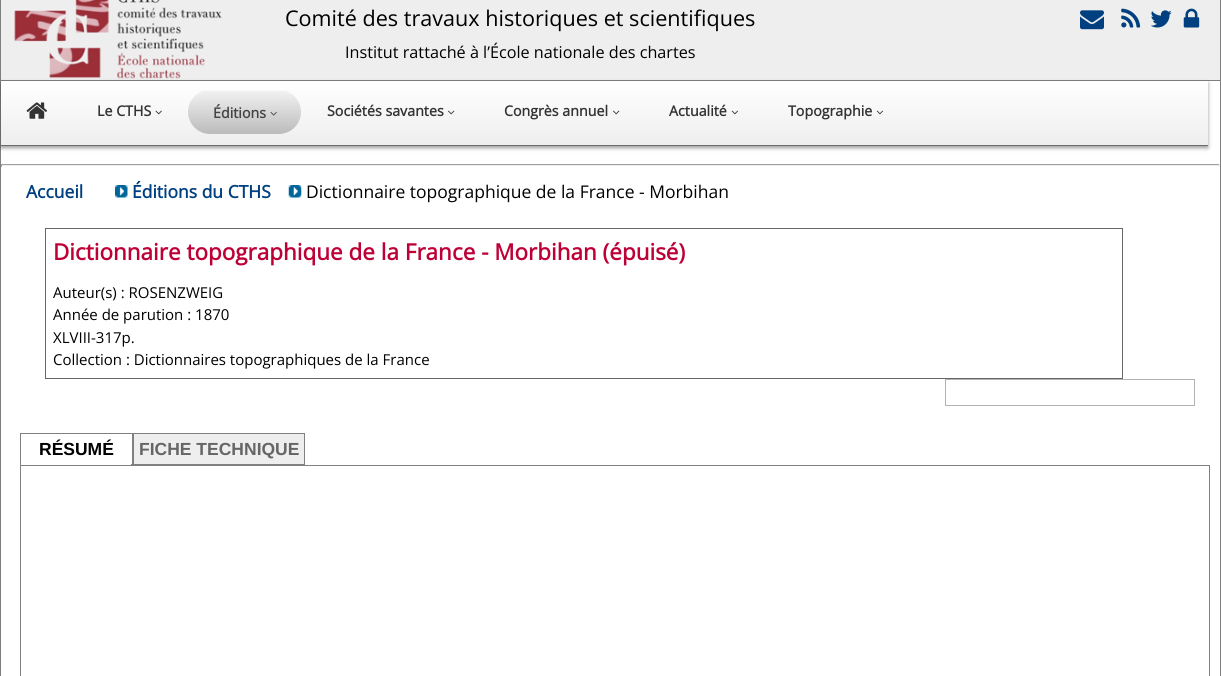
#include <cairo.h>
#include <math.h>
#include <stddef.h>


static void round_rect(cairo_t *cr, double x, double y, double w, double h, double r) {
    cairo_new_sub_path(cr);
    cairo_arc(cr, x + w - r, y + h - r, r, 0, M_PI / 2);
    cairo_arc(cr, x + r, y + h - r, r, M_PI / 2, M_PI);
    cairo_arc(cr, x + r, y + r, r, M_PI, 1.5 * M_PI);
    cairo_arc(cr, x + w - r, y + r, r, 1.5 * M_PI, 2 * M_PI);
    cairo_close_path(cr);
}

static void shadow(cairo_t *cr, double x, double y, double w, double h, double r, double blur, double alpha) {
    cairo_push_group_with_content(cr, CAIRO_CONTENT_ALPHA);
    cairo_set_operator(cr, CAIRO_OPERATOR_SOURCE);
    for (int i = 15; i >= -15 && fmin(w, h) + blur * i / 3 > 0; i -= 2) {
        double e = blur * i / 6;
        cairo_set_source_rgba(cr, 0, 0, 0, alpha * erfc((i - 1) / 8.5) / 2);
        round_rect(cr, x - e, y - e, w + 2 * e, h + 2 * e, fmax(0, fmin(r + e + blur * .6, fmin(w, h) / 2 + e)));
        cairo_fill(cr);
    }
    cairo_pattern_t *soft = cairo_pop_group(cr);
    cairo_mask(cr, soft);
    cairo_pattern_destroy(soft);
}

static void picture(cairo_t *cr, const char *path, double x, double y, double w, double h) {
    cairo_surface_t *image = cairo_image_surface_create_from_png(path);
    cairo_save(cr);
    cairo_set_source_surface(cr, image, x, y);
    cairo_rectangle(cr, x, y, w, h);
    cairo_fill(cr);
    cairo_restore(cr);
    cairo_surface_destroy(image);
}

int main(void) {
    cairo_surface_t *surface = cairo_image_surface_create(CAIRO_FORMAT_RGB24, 1221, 676);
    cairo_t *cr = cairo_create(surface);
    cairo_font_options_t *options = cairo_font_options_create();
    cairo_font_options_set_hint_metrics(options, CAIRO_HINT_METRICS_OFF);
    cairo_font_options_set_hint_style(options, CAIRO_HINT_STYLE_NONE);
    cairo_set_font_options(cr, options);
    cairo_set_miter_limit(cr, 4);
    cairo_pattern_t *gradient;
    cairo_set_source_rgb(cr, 1, 1, 1);
    cairo_paint(cr);
    cairo_set_source_rgb(cr, 0.498, 0.498, 0.498);
    cairo_rectangle(cr, 1220, 0, 1, 676);
    cairo_fill(cr);
    cairo_rectangle(cr, 0, 0, 1, 676);
    cairo_fill(cr);
    cairo_set_source_rgb(cr, 0.933, 0.933, 0.933);
    cairo_rectangle(cr, 1, 0, 1219, 80);
    cairo_fill(cr);
    cairo_set_source_rgb(cr, 0.498, 0.498, 0.498);
    cairo_rectangle(cr, 1, 80, 1219, 1);
    cairo_fill(cr);
    picture(cr, "img1.png", 14, 0, 208, 79);
    cairo_select_font_face(cr, "Open Sans", CAIRO_FONT_SLANT_NORMAL, CAIRO_FONT_WEIGHT_NORMAL);
    cairo_set_font_size(cr, 21.6);
    cairo_set_source_rgb(cr, 0, 0, 0);
    cairo_move_to(cr, 285, 26);
    cairo_show_text(cr, "Comité des travaux historiques et scientifiques");
    cairo_set_font_size(cr, 16.2);
    cairo_move_to(cr, 345, 58);
    cairo_show_text(cr, "Institut rattaché à l’École nationale des chartes");
    picture(cr, "img2.png", 1080, 10, 24, 20);
    picture(cr, "img3.png", 1121, 8, 20, 20);
    picture(cr, "img4.png", 1150, 10, 22, 18);
    picture(cr, "img5.png", 1183, 8, 17, 20);
    cairo_set_source_rgb(cr, 0, 0, 0);
    shadow(cr, 1, 83, 1207, 65, 0, 2, 0.4);
    gradient = cairo_pattern_create_linear(1.2, 81, 1.2, 145);
    cairo_pattern_add_color_stop_rgba(gradient, 0, 1, 1, 1, 1);
    cairo_pattern_add_color_stop_rgba(gradient, 1, 0.933, 0.933, 0.933, 1);
    cairo_set_source(cr, gradient);
    cairo_pattern_destroy(gradient);
    cairo_rectangle(cr, 1, 81, 1207, 64);
    cairo_fill(cr);
    cairo_set_source_rgb(cr, 0.427, 0.427, 0.427);
    cairo_rectangle(cr, 1, 145, 1207, 1);
    cairo_fill(cr);
    picture(cr, "img6.png", 26, 102, 21, 17);
    cairo_select_font_face(cr, "Open Sans", CAIRO_FONT_SLANT_NORMAL, CAIRO_FONT_WEIGHT_BOLD);
    cairo_set_font_size(cr, 14.25);
    cairo_set_source_rgb(cr, 0.2, 0.2, 0.2);
    cairo_move_to(cr, 97, 116);
    cairo_show_text(cr, "Le CTHS");
    picture(cr, "img7.png", 155, 110, 7, 5);
    cairo_save(cr);
    round_rect(cr, 188, 90, 113, 44, 22);
    cairo_clip(cr);
    gradient = cairo_pattern_create_linear(188, 91, 188, 134);
    cairo_pattern_add_color_stop_rgba(gradient, 0, 0.945, 0.945, 0.945, 1);
    cairo_pattern_add_color_stop_rgba(gradient, 1, 0.733, 0.733, 0.733, 1);
    cairo_set_source(cr, gradient);
    cairo_pattern_destroy(gradient);
    cairo_new_path(cr);
    cairo_move_to(cr, 188, 91);
    cairo_line_to(cr, 301, 91);
    cairo_line_to(cr, 301, 112);
    cairo_curve_to(cr, 301, 124, 291, 134, 279, 134);
    cairo_line_to(cr, 210, 134);
    cairo_curve_to(cr, 198, 134, 188, 124, 188, 112);
    cairo_close_path(cr);
    cairo_fill(cr);
    cairo_restore(cr);
    cairo_set_source_rgb(cr, 0.973, 0.973, 0.973);
    cairo_rectangle(cr, 199, 90, 91, 1);
    cairo_fill(cr);
    cairo_set_source_rgb(cr, 0.267, 0.267, 0.267);
    cairo_move_to(cr, 213, 118);
    cairo_show_text(cr, "Éditions");
    picture(cr, "img8.png", 270, 111, 7, 5);
    cairo_set_source_rgb(cr, 0.2, 0.2, 0.2);
    cairo_move_to(cr, 327, 116);
    cairo_show_text(cr, "Sociétés savantes");
    picture(cr, "img9.png", 448, 110, 7, 5);
    cairo_move_to(cr, 504, 116);
    cairo_show_text(cr, "Congrès annuel");
    picture(cr, "img9.png", 613, 110, 7, 5);
    cairo_move_to(cr, 669, 116);
    cairo_show_text(cr, "Actualité");
    picture(cr, "img10.png", 731, 110, 7, 5);
    cairo_move_to(cr, 788, 116);
    cairo_show_text(cr, "Topographie");
    picture(cr, "img10.png", 876, 110, 7, 5);
    cairo_set_source_rgb(cr, 0.624, 0.624, 0.624);
    cairo_rectangle(cr, 1, 164, 1219, 1);
    cairo_fill(cr);
    cairo_set_source_rgb(cr, 0.933, 0.933, 0.933);
    cairo_rectangle(cr, 1219, 164, 1, 3);
    cairo_fill(cr);
    cairo_rectangle(cr, 1, 165, 1219, 1);
    cairo_fill(cr);
    cairo_set_source_rgb(cr, 0.624, 0.624, 0.624);
    cairo_rectangle(cr, 1, 164, 1, 3);
    cairo_fill(cr);
    cairo_set_font_size(cr, 17.5);
    cairo_set_source_rgb(cr, 0, 0.251, 0.502);
    cairo_move_to(cr, 26, 198);
    cairo_show_text(cr, "Accueil");
    picture(cr, "img11.png", 115, 185, 13, 13);
    cairo_move_to(cr, 132, 198);
    cairo_show_text(cr, "Éditions du CTHS");
    picture(cr, "img12.png", 288, 185, 14, 13);
    cairo_select_font_face(cr, "Open Sans", CAIRO_FONT_SLANT_NORMAL, CAIRO_FONT_WEIGHT_NORMAL);
    cairo_set_source_rgb(cr, 0, 0, 0);
    cairo_move_to(cr, 306, 198);
    cairo_show_text(cr, "Dictionnaire topographique de la France - Morbihan");
    cairo_rectangle(cr, 45.5, 228.5, 1077, 150);
    cairo_set_source_rgb(cr, 0.4, 0.4, 0.4);
    cairo_set_line_width(cr, 1);
    cairo_stroke(cr);
    cairo_select_font_face(cr, "Open Sans", CAIRO_FONT_SLANT_NORMAL, CAIRO_FONT_WEIGHT_BOLD);
    cairo_set_font_size(cr, 22.5);
    cairo_set_source_rgb(cr, 0.741, 0, 0.212);
    cairo_move_to(cr, 53, 260);
    cairo_show_text(cr, "Dictionnaire topographique de la France - Morbihan (épuisé)");
    cairo_select_font_face(cr, "Open Sans", CAIRO_FONT_SLANT_NORMAL, CAIRO_FONT_WEIGHT_NORMAL);
    cairo_set_font_size(cr, 15);
    cairo_set_source_rgb(cr, 0, 0, 0);
    cairo_move_to(cr, 53, 298);
    cairo_show_text(cr, "Auteur(s) : ROSENZWEIG");
    cairo_move_to(cr, 53, 320);
    cairo_show_text(cr, "Année de parution : 1870");
    cairo_move_to(cr, 53, 343);
    cairo_show_text(cr, "XLVIII-317p.");
    cairo_move_to(cr, 53, 365);
    cairo_show_text(cr, "Collection : Dictionnaires topographiques de la France");
    cairo_rectangle(cr, 945.5, 379.5, 249, 26);
    cairo_set_source_rgb(cr, 0.702, 0.702, 0.702);
    cairo_stroke(cr);
    cairo_rectangle(cr, 20.5, 433.5, 112, 31);
    cairo_set_source_rgb(cr, 0.502, 0.502, 0.502);
    cairo_stroke(cr);
    cairo_set_source_rgb(cr, 1, 1, 1);
    cairo_rectangle(cr, 21, 464, 110, 1);
    cairo_fill(cr);
    cairo_select_font_face(cr, "Liberation Sans", CAIRO_FONT_SLANT_NORMAL, CAIRO_FONT_WEIGHT_BOLD);
    cairo_set_font_size(cr, 17.5);
    cairo_set_source_rgb(cr, 0, 0, 0);
    cairo_move_to(cr, 39, 455);
    cairo_show_text(cr, "RÉSUMÉ");
    cairo_rectangle(cr, 133.5, 433.5, 171, 31);
    cairo_set_source_rgb(cr, 0.502, 0.502, 0.502);
    cairo_stroke(cr);
    cairo_set_source_rgb(cr, 0.933, 0.933, 0.933);
    cairo_rectangle(cr, 134, 434, 170, 30);
    cairo_fill(cr);
    cairo_set_source_rgb(cr, 0.4, 0.4, 0.4);
    cairo_move_to(cr, 139, 455);
    cairo_show_text(cr, "FICHE TECHNIQUE");
    cairo_rectangle(cr, 20.5, 465.5, 1189, 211);
    cairo_set_source_rgb(cr, 0.502, 0.502, 0.502);
    cairo_stroke(cr);
    cairo_surface_write_to_png(surface, "page.png");
    cairo_font_options_destroy(options);
    cairo_destroy(cr);
    cairo_surface_destroy(surface);
    return 0;
}
